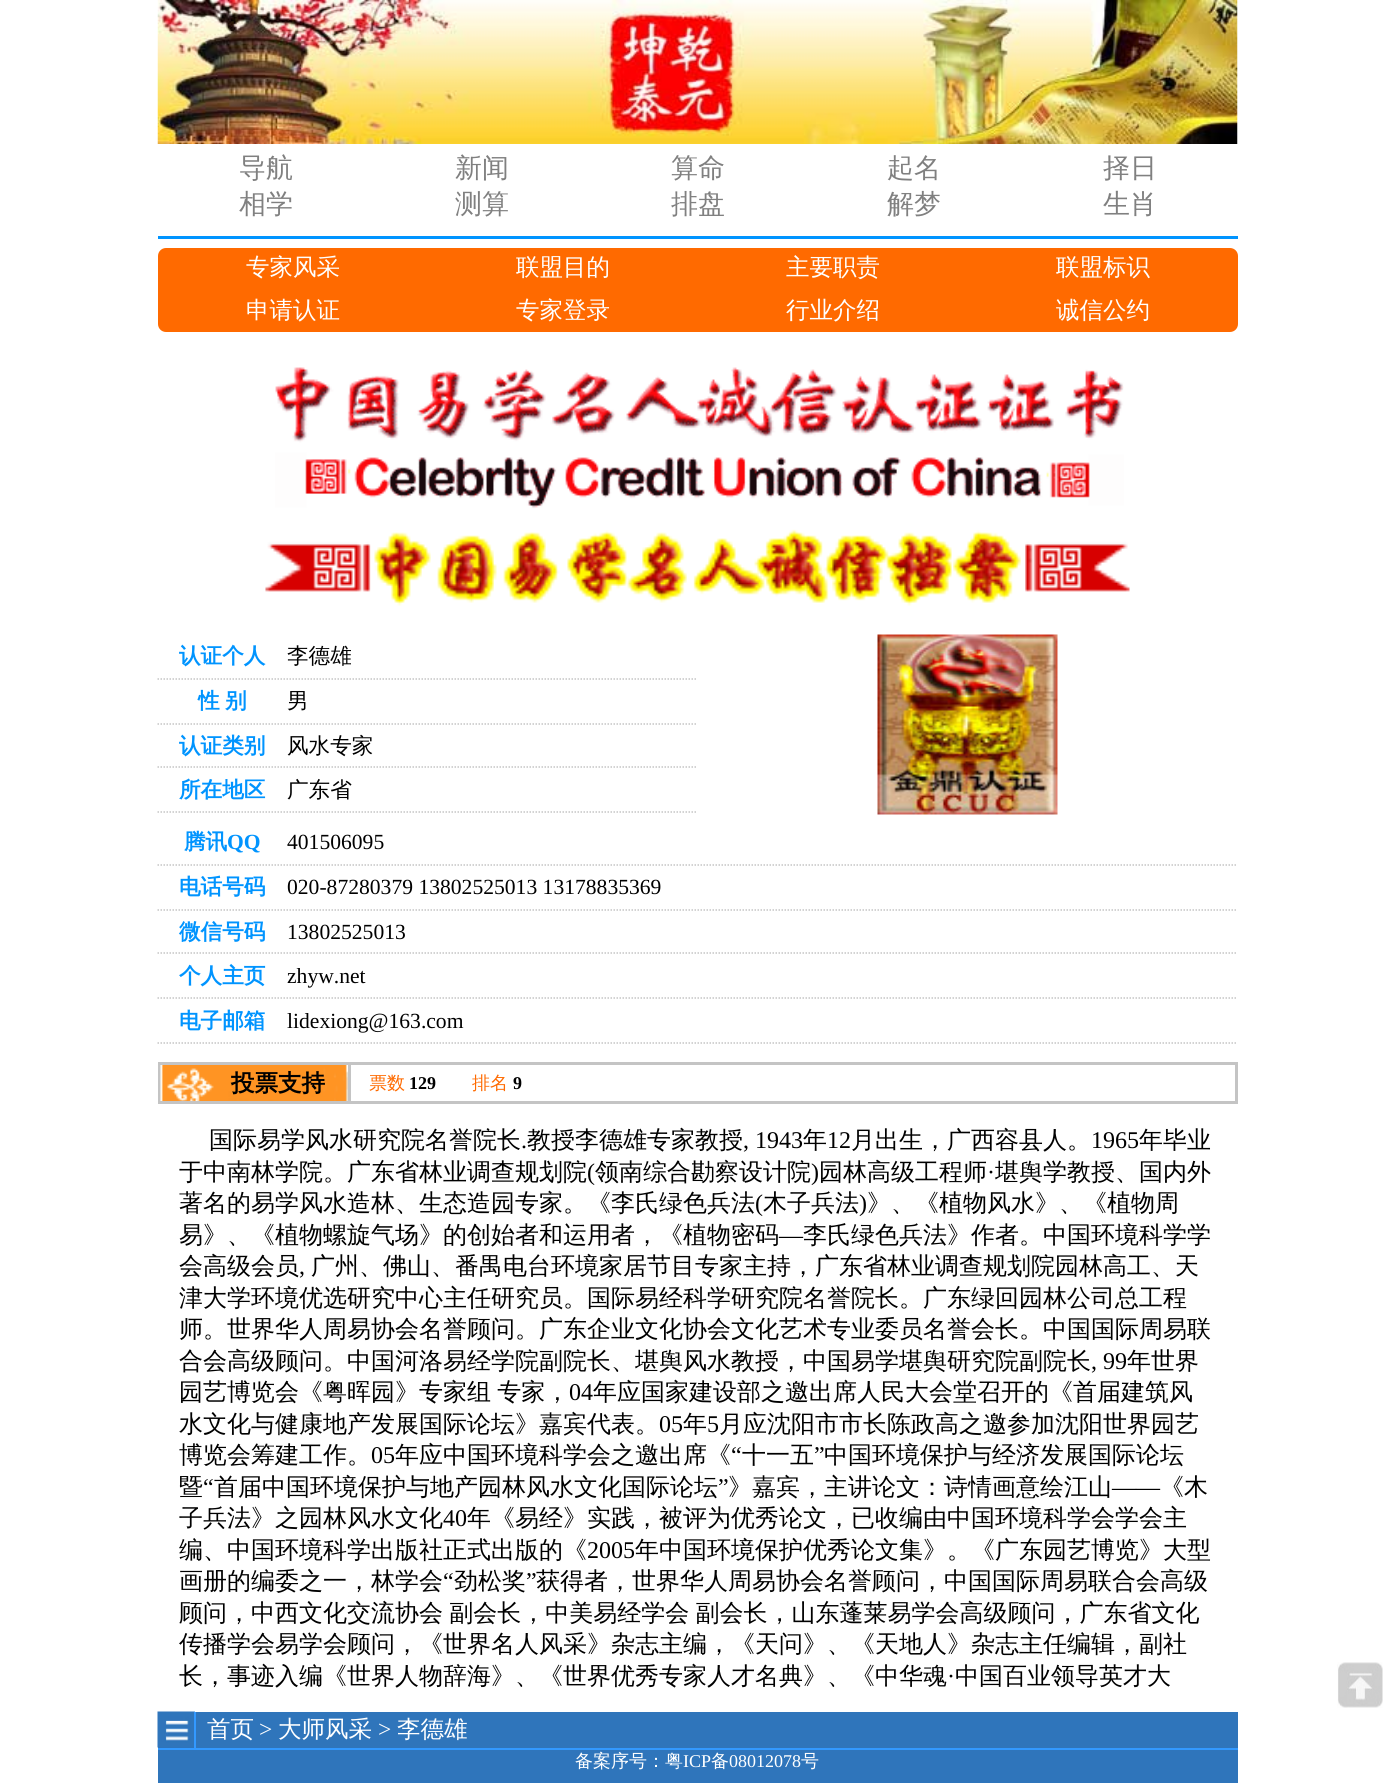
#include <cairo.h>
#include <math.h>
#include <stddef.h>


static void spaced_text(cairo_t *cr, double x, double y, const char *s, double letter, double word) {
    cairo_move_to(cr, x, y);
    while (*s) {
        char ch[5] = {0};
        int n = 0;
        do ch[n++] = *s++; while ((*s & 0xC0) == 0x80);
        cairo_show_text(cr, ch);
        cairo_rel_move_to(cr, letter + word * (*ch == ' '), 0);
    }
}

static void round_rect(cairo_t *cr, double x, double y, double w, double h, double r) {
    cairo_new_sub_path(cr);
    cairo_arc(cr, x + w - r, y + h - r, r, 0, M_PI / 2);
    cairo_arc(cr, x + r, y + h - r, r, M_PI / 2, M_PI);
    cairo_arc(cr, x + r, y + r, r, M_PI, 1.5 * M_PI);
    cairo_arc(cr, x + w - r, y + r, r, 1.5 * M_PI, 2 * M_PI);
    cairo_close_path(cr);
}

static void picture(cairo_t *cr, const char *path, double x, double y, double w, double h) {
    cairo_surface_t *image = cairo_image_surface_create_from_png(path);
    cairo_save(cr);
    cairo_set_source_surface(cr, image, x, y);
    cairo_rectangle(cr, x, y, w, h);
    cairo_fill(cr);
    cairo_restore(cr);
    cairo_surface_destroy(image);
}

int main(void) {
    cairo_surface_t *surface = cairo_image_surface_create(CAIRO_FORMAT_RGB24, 1394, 1783);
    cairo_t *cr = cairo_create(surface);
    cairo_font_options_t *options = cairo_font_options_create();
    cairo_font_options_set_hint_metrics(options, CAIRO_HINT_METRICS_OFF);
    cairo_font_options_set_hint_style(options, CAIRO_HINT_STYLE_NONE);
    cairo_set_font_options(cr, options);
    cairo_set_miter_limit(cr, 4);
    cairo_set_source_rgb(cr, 1, 1, 1);
    cairo_paint(cr);
    picture(cr, "img1.png", 157, 0, 1081, 144);
    cairo_select_font_face(cr, "WenQuanYi Zen Hei Medium", CAIRO_FONT_SLANT_NORMAL, CAIRO_FONT_WEIGHT_NORMAL);
    cairo_set_font_size(cr, 27);
    cairo_set_source_rgb(cr, 0.502, 0.502, 0.502);
    cairo_move_to(cr, 239, 177);
    cairo_show_text(cr, "导航");
    cairo_move_to(cr, 455, 177);
    cairo_show_text(cr, "新闻");
    cairo_move_to(cr, 671, 177);
    cairo_show_text(cr, "算命");
    cairo_move_to(cr, 887, 177);
    cairo_show_text(cr, "起名");
    cairo_move_to(cr, 1103, 177);
    cairo_show_text(cr, "择日");
    cairo_move_to(cr, 239, 213);
    cairo_show_text(cr, "相学");
    cairo_move_to(cr, 455, 213);
    cairo_show_text(cr, "测算");
    cairo_move_to(cr, 671, 213);
    cairo_show_text(cr, "排盘");
    cairo_move_to(cr, 887, 213);
    cairo_show_text(cr, "解梦");
    cairo_move_to(cr, 1103, 213);
    cairo_show_text(cr, "生肖");
    cairo_set_source_rgb(cr, 0, 0.58, 1);
    cairo_rectangle(cr, 158, 236, 1080, 3);
    cairo_fill(cr);
    cairo_set_source_rgb(cr, 1, 0.416, 0);
    round_rect(cr, 158, 248, 1080, 84, 8);
    cairo_fill(cr);
    cairo_set_font_size(cr, 23.5);
    cairo_set_source_rgb(cr, 1, 1, 1);
    cairo_move_to(cr, 246, 275);
    cairo_show_text(cr, "专家风采");
    cairo_move_to(cr, 516, 275);
    cairo_show_text(cr, "联盟目的");
    cairo_move_to(cr, 786, 275);
    cairo_show_text(cr, "主要职责");
    cairo_move_to(cr, 1056, 275);
    cairo_show_text(cr, "联盟标识");
    cairo_move_to(cr, 246, 318);
    cairo_show_text(cr, "申请认证");
    cairo_move_to(cr, 516, 318);
    cairo_show_text(cr, "专家登录");
    cairo_move_to(cr, 786, 318);
    cairo_show_text(cr, "行业介绍");
    cairo_move_to(cr, 1056, 318);
    cairo_show_text(cr, "诚信公约");
    picture(cr, "img2.png", 275, 367, 849, 142);
    picture(cr, "img3.png", 265, 529, 865, 77);
    cairo_new_path(cr);
    cairo_move_to(cr, 157.5, 679);
    cairo_line_to(cr, 697.5, 679);
    cairo_set_source_rgb(cr, 0.769, 0.769, 0.769);
    cairo_set_line_width(cr, 1.5);
    cairo_set_dash(cr, (double[]){1.5, 1.5}, 2, 0);
    cairo_stroke(cr);
    cairo_select_font_face(cr, "WenQuanYi Zen Hei", CAIRO_FONT_SLANT_NORMAL, CAIRO_FONT_WEIGHT_BOLD);
    cairo_set_font_size(cr, 21.6);
    cairo_set_source_rgb(cr, 0, 0.58, 1);
    cairo_move_to(cr, 179, 663);
    cairo_show_text(cr, "认证个人");
    cairo_select_font_face(cr, "WenQuanYi Zen Hei Medium", CAIRO_FONT_SLANT_NORMAL, CAIRO_FONT_WEIGHT_NORMAL);
    cairo_set_source_rgb(cr, 0, 0, 0);
    cairo_move_to(cr, 287, 663);
    cairo_show_text(cr, "李德雄");
    cairo_new_path(cr);
    cairo_move_to(cr, 157.5, 724);
    cairo_line_to(cr, 697.5, 724);
    cairo_set_source_rgb(cr, 0.769, 0.769, 0.769);
    cairo_stroke(cr);
    cairo_select_font_face(cr, "WenQuanYi Zen Hei", CAIRO_FONT_SLANT_NORMAL, CAIRO_FONT_WEIGHT_BOLD);
    cairo_set_source_rgb(cr, 0, 0.58, 1);
    cairo_move_to(cr, 198, 708);
    cairo_show_text(cr, "性");
    cairo_move_to(cr, 225, 708);
    cairo_show_text(cr, "别");
    cairo_select_font_face(cr, "WenQuanYi Zen Hei Medium", CAIRO_FONT_SLANT_NORMAL, CAIRO_FONT_WEIGHT_NORMAL);
    cairo_set_source_rgb(cr, 0, 0, 0);
    cairo_move_to(cr, 287, 708);
    cairo_show_text(cr, "男");
    cairo_new_path(cr);
    cairo_move_to(cr, 157.5, 767);
    cairo_line_to(cr, 697.5, 767);
    cairo_set_source_rgb(cr, 0.769, 0.769, 0.769);
    cairo_stroke(cr);
    cairo_select_font_face(cr, "WenQuanYi Zen Hei", CAIRO_FONT_SLANT_NORMAL, CAIRO_FONT_WEIGHT_BOLD);
    cairo_set_source_rgb(cr, 0, 0.58, 1);
    cairo_move_to(cr, 179, 753);
    cairo_show_text(cr, "认证类别");
    cairo_select_font_face(cr, "WenQuanYi Zen Hei Medium", CAIRO_FONT_SLANT_NORMAL, CAIRO_FONT_WEIGHT_NORMAL);
    cairo_set_source_rgb(cr, 0, 0, 0);
    cairo_move_to(cr, 287, 753);
    cairo_show_text(cr, "风水专家");
    cairo_new_path(cr);
    cairo_move_to(cr, 157.5, 812);
    cairo_line_to(cr, 697.5, 812);
    cairo_set_source_rgb(cr, 0.769, 0.769, 0.769);
    cairo_stroke(cr);
    cairo_select_font_face(cr, "WenQuanYi Zen Hei", CAIRO_FONT_SLANT_NORMAL, CAIRO_FONT_WEIGHT_BOLD);
    cairo_set_source_rgb(cr, 0, 0.58, 1);
    cairo_move_to(cr, 179, 797);
    cairo_show_text(cr, "所在地区");
    cairo_select_font_face(cr, "WenQuanYi Zen Hei Medium", CAIRO_FONT_SLANT_NORMAL, CAIRO_FONT_WEIGHT_NORMAL);
    cairo_set_source_rgb(cr, 0, 0, 0);
    cairo_move_to(cr, 287, 797);
    cairo_show_text(cr, "广东省");
    picture(cr, "img4.png", 877, 634, 181, 181);
    cairo_new_path(cr);
    cairo_move_to(cr, 157.5, 865);
    cairo_line_to(cr, 1237.5, 865);
    cairo_set_source_rgb(cr, 0.769, 0.769, 0.769);
    cairo_stroke(cr);
    cairo_select_font_face(cr, "WenQuanYi Zen Hei", CAIRO_FONT_SLANT_NORMAL, CAIRO_FONT_WEIGHT_BOLD);
    cairo_set_source_rgb(cr, 0, 0.58, 1);
    cairo_move_to(cr, 184, 849);
    cairo_show_text(cr, "腾讯");
    cairo_select_font_face(cr, "Liberation Serif", CAIRO_FONT_SLANT_NORMAL, CAIRO_FONT_WEIGHT_BOLD);
    cairo_move_to(cr, 227, 849);
    cairo_show_text(cr, "QQ");
    cairo_select_font_face(cr, "Liberation Serif", CAIRO_FONT_SLANT_NORMAL, CAIRO_FONT_WEIGHT_NORMAL);
    cairo_set_source_rgb(cr, 0, 0, 0);
    cairo_move_to(cr, 287, 849);
    cairo_show_text(cr, "401506095");
    cairo_new_path(cr);
    cairo_move_to(cr, 157.5, 910);
    cairo_line_to(cr, 1237.5, 910);
    cairo_set_source_rgb(cr, 0.769, 0.769, 0.769);
    cairo_stroke(cr);
    cairo_select_font_face(cr, "WenQuanYi Zen Hei", CAIRO_FONT_SLANT_NORMAL, CAIRO_FONT_WEIGHT_BOLD);
    cairo_set_source_rgb(cr, 0, 0.58, 1);
    cairo_move_to(cr, 179, 894);
    cairo_show_text(cr, "电话号码");
    cairo_select_font_face(cr, "Liberation Serif", CAIRO_FONT_SLANT_NORMAL, CAIRO_FONT_WEIGHT_NORMAL);
    cairo_set_source_rgb(cr, 0, 0, 0);
    cairo_move_to(cr, 287, 894);
    cairo_show_text(cr, "020-87280379 13802525013 13178835369");
    cairo_new_path(cr);
    cairo_move_to(cr, 157.5, 953);
    cairo_line_to(cr, 1237.5, 953);
    cairo_set_source_rgb(cr, 0.769, 0.769, 0.769);
    cairo_stroke(cr);
    cairo_select_font_face(cr, "WenQuanYi Zen Hei", CAIRO_FONT_SLANT_NORMAL, CAIRO_FONT_WEIGHT_BOLD);
    cairo_set_source_rgb(cr, 0, 0.58, 1);
    cairo_move_to(cr, 179, 939);
    cairo_show_text(cr, "微信号码");
    cairo_select_font_face(cr, "Liberation Serif", CAIRO_FONT_SLANT_NORMAL, CAIRO_FONT_WEIGHT_NORMAL);
    cairo_set_source_rgb(cr, 0, 0, 0);
    cairo_move_to(cr, 287, 939);
    cairo_show_text(cr, "13802525013");
    cairo_new_path(cr);
    cairo_move_to(cr, 157.5, 998);
    cairo_line_to(cr, 1237.5, 998);
    cairo_set_source_rgb(cr, 0.769, 0.769, 0.769);
    cairo_stroke(cr);
    cairo_select_font_face(cr, "WenQuanYi Zen Hei", CAIRO_FONT_SLANT_NORMAL, CAIRO_FONT_WEIGHT_BOLD);
    cairo_set_source_rgb(cr, 0, 0.58, 1);
    cairo_move_to(cr, 179, 983);
    cairo_show_text(cr, "个人主页");
    cairo_select_font_face(cr, "Liberation Serif", CAIRO_FONT_SLANT_NORMAL, CAIRO_FONT_WEIGHT_NORMAL);
    cairo_set_source_rgb(cr, 0, 0, 0);
    cairo_move_to(cr, 287, 983);
    cairo_show_text(cr, "zhyw.net");
    cairo_new_path(cr);
    cairo_move_to(cr, 157.5, 1043);
    cairo_line_to(cr, 1237.5, 1043);
    cairo_set_source_rgb(cr, 0.769, 0.769, 0.769);
    cairo_stroke(cr);
    cairo_select_font_face(cr, "WenQuanYi Zen Hei", CAIRO_FONT_SLANT_NORMAL, CAIRO_FONT_WEIGHT_BOLD);
    cairo_set_source_rgb(cr, 0, 0.58, 1);
    cairo_move_to(cr, 179, 1028);
    cairo_show_text(cr, "电子邮箱");
    cairo_select_font_face(cr, "Liberation Serif", CAIRO_FONT_SLANT_NORMAL, CAIRO_FONT_WEIGHT_NORMAL);
    cairo_set_source_rgb(cr, 0, 0, 0);
    cairo_move_to(cr, 287, 1028);
    cairo_show_text(cr, "lidexiong@163.com");
    cairo_rectangle(cr, 159.5, 1063.5, 1077, 39);
    cairo_set_source_rgb(cr, 0.769, 0.769, 0.769);
    cairo_set_line_width(cr, 3);
    cairo_set_dash(cr, NULL, 0, 0);
    cairo_stroke(cr);
    picture(cr, "img5.png", 160, 1065, 188, 36);
    cairo_rectangle(cr, 348, 1065, 3, 36);
    cairo_fill(cr);
    cairo_select_font_face(cr, "WenQuanYi Zen Hei", CAIRO_FONT_SLANT_NORMAL, CAIRO_FONT_WEIGHT_BOLD);
    cairo_set_font_size(cr, 23.5);
    cairo_set_source_rgb(cr, 0, 0, 0);
    cairo_move_to(cr, 231, 1091);
    cairo_show_text(cr, "投票支持");
    cairo_select_font_face(cr, "WenQuanYi Zen Hei Medium", CAIRO_FONT_SLANT_NORMAL, CAIRO_FONT_WEIGHT_NORMAL);
    cairo_set_font_size(cr, 18);
    cairo_set_source_rgb(cr, 1, 0.416, 0);
    cairo_move_to(cr, 369, 1089);
    cairo_show_text(cr, "票数");
    cairo_select_font_face(cr, "Liberation Serif", CAIRO_FONT_SLANT_NORMAL, CAIRO_FONT_WEIGHT_BOLD);
    cairo_set_source_rgb(cr, 0, 0, 0);
    cairo_move_to(cr, 409, 1089);
    cairo_show_text(cr, "129");
    cairo_select_font_face(cr, "WenQuanYi Zen Hei Medium", CAIRO_FONT_SLANT_NORMAL, CAIRO_FONT_WEIGHT_NORMAL);
    cairo_set_source_rgb(cr, 1, 0.416, 0);
    cairo_move_to(cr, 472, 1089);
    cairo_show_text(cr, "排名");
    cairo_select_font_face(cr, "Liberation Serif", CAIRO_FONT_SLANT_NORMAL, CAIRO_FONT_WEIGHT_BOLD);
    cairo_set_source_rgb(cr, 0, 0, 0);
    cairo_move_to(cr, 513, 1089);
    cairo_show_text(cr, "9");
    cairo_select_font_face(cr, "WenQuanYi Zen Hei Medium", CAIRO_FONT_SLANT_NORMAL, CAIRO_FONT_WEIGHT_NORMAL);
    cairo_set_font_size(cr, 24);
    cairo_move_to(cr, 209, 1148);
    cairo_show_text(cr, "国际易学风水研究院名誉院长");
    cairo_select_font_face(cr, "Liberation Serif", CAIRO_FONT_SLANT_NORMAL, CAIRO_FONT_WEIGHT_NORMAL);
    cairo_move_to(cr, 521, 1148);
    cairo_show_text(cr, ".");
    cairo_select_font_face(cr, "WenQuanYi Zen Hei Medium", CAIRO_FONT_SLANT_NORMAL, CAIRO_FONT_WEIGHT_NORMAL);
    cairo_move_to(cr, 527, 1148);
    cairo_show_text(cr, "教授李德雄专家教授");
    cairo_select_font_face(cr, "Liberation Serif", CAIRO_FONT_SLANT_NORMAL, CAIRO_FONT_WEIGHT_NORMAL);
    cairo_move_to(cr, 743, 1148);
    cairo_show_text(cr, ", 1943");
    cairo_select_font_face(cr, "WenQuanYi Zen Hei Medium", CAIRO_FONT_SLANT_NORMAL, CAIRO_FONT_WEIGHT_NORMAL);
    cairo_move_to(cr, 803, 1148);
    cairo_show_text(cr, "年");
    cairo_select_font_face(cr, "Liberation Serif", CAIRO_FONT_SLANT_NORMAL, CAIRO_FONT_WEIGHT_NORMAL);
    cairo_move_to(cr, 827, 1148);
    cairo_show_text(cr, "12");
    cairo_select_font_face(cr, "WenQuanYi Zen Hei Medium", CAIRO_FONT_SLANT_NORMAL, CAIRO_FONT_WEIGHT_NORMAL);
    cairo_move_to(cr, 851, 1148);
    cairo_show_text(cr, "月出生，广西容县人。");
    cairo_select_font_face(cr, "Liberation Serif", CAIRO_FONT_SLANT_NORMAL, CAIRO_FONT_WEIGHT_NORMAL);
    cairo_move_to(cr, 1091, 1148);
    cairo_show_text(cr, "1965");
    cairo_select_font_face(cr, "WenQuanYi Zen Hei Medium", CAIRO_FONT_SLANT_NORMAL, CAIRO_FONT_WEIGHT_NORMAL);
    cairo_move_to(cr, 1139, 1148);
    cairo_show_text(cr, "年毕业");
    cairo_move_to(cr, 179, 1180);
    cairo_show_text(cr, "于中南林学院。广东省林业调查规划院");
    cairo_select_font_face(cr, "Liberation Serif", CAIRO_FONT_SLANT_NORMAL, CAIRO_FONT_WEIGHT_NORMAL);
    cairo_move_to(cr, 587, 1180);
    cairo_show_text(cr, "(");
    cairo_select_font_face(cr, "WenQuanYi Zen Hei Medium", CAIRO_FONT_SLANT_NORMAL, CAIRO_FONT_WEIGHT_NORMAL);
    cairo_move_to(cr, 595, 1180);
    cairo_show_text(cr, "领南综合勘察设计院");
    cairo_select_font_face(cr, "Liberation Serif", CAIRO_FONT_SLANT_NORMAL, CAIRO_FONT_WEIGHT_NORMAL);
    cairo_move_to(cr, 811, 1180);
    cairo_show_text(cr, ")");
    cairo_select_font_face(cr, "WenQuanYi Zen Hei Medium", CAIRO_FONT_SLANT_NORMAL, CAIRO_FONT_WEIGHT_NORMAL);
    cairo_move_to(cr, 819, 1180);
    cairo_show_text(cr, "园林高级工程师");
    cairo_select_font_face(cr, "Liberation Serif", CAIRO_FONT_SLANT_NORMAL, CAIRO_FONT_WEIGHT_NORMAL);
    cairo_move_to(cr, 987, 1180);
    cairo_show_text(cr, "·");
    cairo_select_font_face(cr, "WenQuanYi Zen Hei Medium", CAIRO_FONT_SLANT_NORMAL, CAIRO_FONT_WEIGHT_NORMAL);
    cairo_move_to(cr, 995, 1180);
    cairo_show_text(cr, "堪舆学教授、国内外");
    cairo_move_to(cr, 179, 1211);
    cairo_show_text(cr, "著名的易学风水造林、生态造园专家。《李氏绿色兵法");
    cairo_select_font_face(cr, "Liberation Serif", CAIRO_FONT_SLANT_NORMAL, CAIRO_FONT_WEIGHT_NORMAL);
    cairo_move_to(cr, 755, 1211);
    cairo_show_text(cr, "(");
    cairo_select_font_face(cr, "WenQuanYi Zen Hei Medium", CAIRO_FONT_SLANT_NORMAL, CAIRO_FONT_WEIGHT_NORMAL);
    cairo_move_to(cr, 763, 1211);
    cairo_show_text(cr, "木子兵法");
    cairo_select_font_face(cr, "Liberation Serif", CAIRO_FONT_SLANT_NORMAL, CAIRO_FONT_WEIGHT_NORMAL);
    cairo_move_to(cr, 859, 1211);
    cairo_show_text(cr, ")");
    cairo_select_font_face(cr, "WenQuanYi Zen Hei Medium", CAIRO_FONT_SLANT_NORMAL, CAIRO_FONT_WEIGHT_NORMAL);
    cairo_move_to(cr, 867, 1211);
    cairo_show_text(cr, "》、《植物风水》、《植物周");
    cairo_move_to(cr, 179, 1243);
    cairo_show_text(cr, "易》、《植物螺旋气场》的创始者和运用者，《植物密码");
    cairo_select_font_face(cr, "Liberation Serif", CAIRO_FONT_SLANT_NORMAL, CAIRO_FONT_WEIGHT_NORMAL);
    cairo_move_to(cr, 779, 1243);
    cairo_show_text(cr, "—");
    cairo_select_font_face(cr, "WenQuanYi Zen Hei Medium", CAIRO_FONT_SLANT_NORMAL, CAIRO_FONT_WEIGHT_NORMAL);
    cairo_move_to(cr, 803, 1243);
    cairo_show_text(cr, "李氏绿色兵法》作者。中国环境科学学");
    cairo_move_to(cr, 179, 1274);
    cairo_show_text(cr, "会高级会员");
    cairo_select_font_face(cr, "Liberation Serif", CAIRO_FONT_SLANT_NORMAL, CAIRO_FONT_WEIGHT_NORMAL);
    cairo_move_to(cr, 299, 1274);
    cairo_show_text(cr, ",");
    cairo_select_font_face(cr, "WenQuanYi Zen Hei Medium", CAIRO_FONT_SLANT_NORMAL, CAIRO_FONT_WEIGHT_NORMAL);
    cairo_move_to(cr, 311, 1274);
    cairo_show_text(cr, "广州、佛山、番禺电台环境家居节目专家主持，广东省林业调查规划院园林高工、天");
    cairo_move_to(cr, 179, 1306);
    cairo_show_text(cr, "津大学环境优选研究中心主任研究员。国际易经科学研究院名誉院长。广东绿回园林公司总工程");
    cairo_move_to(cr, 179, 1337);
    cairo_show_text(cr, "师。世界华人周易协会名誉顾问。广东企业文化协会文化艺术专业委员名誉会长。中国国际周易联");
    cairo_move_to(cr, 179, 1369);
    cairo_show_text(cr, "合会高级顾问。中国河洛易经学院副院长、堪舆风水教授，中国易学堪舆研究院副院长");
    cairo_select_font_face(cr, "Liberation Serif", CAIRO_FONT_SLANT_NORMAL, CAIRO_FONT_WEIGHT_NORMAL);
    cairo_move_to(cr, 1091, 1369);
    cairo_show_text(cr, ", 99");
    cairo_select_font_face(cr, "WenQuanYi Zen Hei Medium", CAIRO_FONT_SLANT_NORMAL, CAIRO_FONT_WEIGHT_NORMAL);
    cairo_move_to(cr, 1127, 1369);
    cairo_show_text(cr, "年世界");
    spaced_text(cr, 179, 1400, "园艺博览会《粤晖园》专家组 专家，", 0, -1);
    cairo_select_font_face(cr, "Liberation Serif", CAIRO_FONT_SLANT_NORMAL, CAIRO_FONT_WEIGHT_NORMAL);
    cairo_move_to(cr, 569, 1400);
    cairo_show_text(cr, "04");
    cairo_select_font_face(cr, "WenQuanYi Zen Hei Medium", CAIRO_FONT_SLANT_NORMAL, CAIRO_FONT_WEIGHT_NORMAL);
    cairo_move_to(cr, 593, 1400);
    cairo_show_text(cr, "年应国家建设部之邀出席人民大会堂召开的《首届建筑风");
    cairo_move_to(cr, 179, 1432);
    cairo_show_text(cr, "水文化与健康地产发展国际论坛》嘉宾代表。");
    cairo_select_font_face(cr, "Liberation Serif", CAIRO_FONT_SLANT_NORMAL, CAIRO_FONT_WEIGHT_NORMAL);
    cairo_move_to(cr, 659, 1432);
    cairo_show_text(cr, "05");
    cairo_select_font_face(cr, "WenQuanYi Zen Hei Medium", CAIRO_FONT_SLANT_NORMAL, CAIRO_FONT_WEIGHT_NORMAL);
    cairo_move_to(cr, 683, 1432);
    cairo_show_text(cr, "年");
    cairo_select_font_face(cr, "Liberation Serif", CAIRO_FONT_SLANT_NORMAL, CAIRO_FONT_WEIGHT_NORMAL);
    cairo_move_to(cr, 707, 1432);
    cairo_show_text(cr, "5");
    cairo_select_font_face(cr, "WenQuanYi Zen Hei Medium", CAIRO_FONT_SLANT_NORMAL, CAIRO_FONT_WEIGHT_NORMAL);
    cairo_move_to(cr, 719, 1432);
    cairo_show_text(cr, "月应沈阳市市长陈政高之邀参加沈阳世界园艺");
    cairo_move_to(cr, 179, 1463);
    cairo_show_text(cr, "博览会筹建工作。");
    cairo_select_font_face(cr, "Liberation Serif", CAIRO_FONT_SLANT_NORMAL, CAIRO_FONT_WEIGHT_NORMAL);
    cairo_move_to(cr, 371, 1463);
    cairo_show_text(cr, "05");
    cairo_select_font_face(cr, "WenQuanYi Zen Hei Medium", CAIRO_FONT_SLANT_NORMAL, CAIRO_FONT_WEIGHT_NORMAL);
    cairo_move_to(cr, 395, 1463);
    cairo_show_text(cr, "年应中国环境科学会之邀出席《");
    cairo_select_font_face(cr, "Liberation Serif", CAIRO_FONT_SLANT_NORMAL, CAIRO_FONT_WEIGHT_NORMAL);
    cairo_move_to(cr, 731, 1463);
    cairo_show_text(cr, "“");
    cairo_select_font_face(cr, "WenQuanYi Zen Hei Medium", CAIRO_FONT_SLANT_NORMAL, CAIRO_FONT_WEIGHT_NORMAL);
    cairo_move_to(cr, 742, 1463);
    cairo_show_text(cr, "十一五");
    cairo_select_font_face(cr, "Liberation Serif", CAIRO_FONT_SLANT_NORMAL, CAIRO_FONT_WEIGHT_NORMAL);
    cairo_move_to(cr, 814, 1463);
    cairo_show_text(cr, "”");
    cairo_select_font_face(cr, "WenQuanYi Zen Hei Medium", CAIRO_FONT_SLANT_NORMAL, CAIRO_FONT_WEIGHT_NORMAL);
    cairo_move_to(cr, 824, 1463);
    cairo_show_text(cr, "中国环境保护与经济发展国际论坛");
    cairo_move_to(cr, 179, 1495);
    cairo_show_text(cr, "暨");
    cairo_select_font_face(cr, "Liberation Serif", CAIRO_FONT_SLANT_NORMAL, CAIRO_FONT_WEIGHT_NORMAL);
    cairo_move_to(cr, 203, 1495);
    cairo_show_text(cr, "“");
    cairo_select_font_face(cr, "WenQuanYi Zen Hei Medium", CAIRO_FONT_SLANT_NORMAL, CAIRO_FONT_WEIGHT_NORMAL);
    cairo_move_to(cr, 214, 1495);
    cairo_show_text(cr, "首届中国环境保护与地产园林风水文化国际论坛");
    cairo_select_font_face(cr, "Liberation Serif", CAIRO_FONT_SLANT_NORMAL, CAIRO_FONT_WEIGHT_NORMAL);
    cairo_move_to(cr, 718, 1495);
    cairo_show_text(cr, "”");
    cairo_select_font_face(cr, "WenQuanYi Zen Hei Medium", CAIRO_FONT_SLANT_NORMAL, CAIRO_FONT_WEIGHT_NORMAL);
    cairo_move_to(cr, 728, 1495);
    cairo_show_text(cr, "》嘉宾，主讲论文：诗情画意绘江山");
    cairo_move_to(cr, 1160, 1495);
    cairo_show_text(cr, "《木");
    cairo_select_font_face(cr, "Liberation Serif", CAIRO_FONT_SLANT_NORMAL, CAIRO_FONT_WEIGHT_NORMAL);
    cairo_move_to(cr, 1112, 1495);
    cairo_show_text(cr, "——");
    cairo_select_font_face(cr, "WenQuanYi Zen Hei Medium", CAIRO_FONT_SLANT_NORMAL, CAIRO_FONT_WEIGHT_NORMAL);
    cairo_move_to(cr, 179, 1526);
    cairo_show_text(cr, "子兵法》之园林风水文化");
    cairo_select_font_face(cr, "Liberation Serif", CAIRO_FONT_SLANT_NORMAL, CAIRO_FONT_WEIGHT_NORMAL);
    cairo_move_to(cr, 443, 1526);
    cairo_show_text(cr, "40");
    cairo_select_font_face(cr, "WenQuanYi Zen Hei Medium", CAIRO_FONT_SLANT_NORMAL, CAIRO_FONT_WEIGHT_NORMAL);
    cairo_move_to(cr, 467, 1526);
    cairo_show_text(cr, "年《易经》实践，被评为优秀论文，已收编由中国环境科学会学会主");
    cairo_move_to(cr, 179, 1558);
    cairo_show_text(cr, "编、中国环境科学出版社正式出版的《");
    cairo_select_font_face(cr, "Liberation Serif", CAIRO_FONT_SLANT_NORMAL, CAIRO_FONT_WEIGHT_NORMAL);
    cairo_move_to(cr, 587, 1558);
    cairo_show_text(cr, "2005");
    cairo_select_font_face(cr, "WenQuanYi Zen Hei Medium", CAIRO_FONT_SLANT_NORMAL, CAIRO_FONT_WEIGHT_NORMAL);
    cairo_move_to(cr, 635, 1558);
    cairo_show_text(cr, "年中国环境保护优秀论文集》。《广东园艺博览》大型");
    cairo_move_to(cr, 179, 1589);
    cairo_show_text(cr, "画册的编委之一，林学会");
    cairo_select_font_face(cr, "Liberation Serif", CAIRO_FONT_SLANT_NORMAL, CAIRO_FONT_WEIGHT_NORMAL);
    cairo_move_to(cr, 443, 1589);
    cairo_show_text(cr, "“");
    cairo_select_font_face(cr, "WenQuanYi Zen Hei Medium", CAIRO_FONT_SLANT_NORMAL, CAIRO_FONT_WEIGHT_NORMAL);
    cairo_move_to(cr, 454, 1589);
    cairo_show_text(cr, "劲松奖");
    cairo_select_font_face(cr, "Liberation Serif", CAIRO_FONT_SLANT_NORMAL, CAIRO_FONT_WEIGHT_NORMAL);
    cairo_move_to(cr, 526, 1589);
    cairo_show_text(cr, "”");
    cairo_select_font_face(cr, "WenQuanYi Zen Hei Medium", CAIRO_FONT_SLANT_NORMAL, CAIRO_FONT_WEIGHT_NORMAL);
    cairo_move_to(cr, 536, 1589);
    cairo_show_text(cr, "获得者，世界华人周易协会名誉顾问，中国国际周易联合会高级");
    spaced_text(cr, 179, 1621, "顾问，中西文化交流协会 副会长，中美易经学会 副会长，山东蓬莱易学会高级顾问，广东省文化", 0, -1);
    cairo_move_to(cr, 179, 1652);
    cairo_show_text(cr, "传播学会易学会顾问，《世界名人风采》杂志主编，《天问》、《天地人》杂志主任编辑，副社");
    cairo_move_to(cr, 179, 1684);
    cairo_show_text(cr, "长，事迹入编《世界人物辞海》、《世界优秀专家人才名典》、《中华魂");
    cairo_select_font_face(cr, "Liberation Serif", CAIRO_FONT_SLANT_NORMAL, CAIRO_FONT_WEIGHT_NORMAL);
    cairo_move_to(cr, 947, 1684);
    cairo_show_text(cr, "·");
    cairo_select_font_face(cr, "WenQuanYi Zen Hei Medium", CAIRO_FONT_SLANT_NORMAL, CAIRO_FONT_WEIGHT_NORMAL);
    cairo_move_to(cr, 955, 1684);
    cairo_show_text(cr, "中国百业领导英才大");
    cairo_set_source_rgb(cr, 0.184, 0.459, 0.733);
    cairo_rectangle(cr, 158, 1712, 1080, 71);
    cairo_fill(cr);
    cairo_set_source_rgb(cr, 0.2, 0.6, 1);
    cairo_rectangle(cr, 158, 1748, 1080, 2);
    cairo_fill(cr);
    picture(cr, "img6.png", 157, 1711, 38, 37);
    cairo_rectangle(cr, 194, 1712, 2, 36);
    cairo_fill(cr);
    cairo_set_font_size(cr, 23.5);
    cairo_set_source_rgb(cr, 1, 1, 1);
    cairo_move_to(cr, 207, 1737);
    cairo_show_text(cr, "首页");
    cairo_select_font_face(cr, "Liberation Serif", CAIRO_FONT_SLANT_NORMAL, CAIRO_FONT_WEIGHT_NORMAL);
    cairo_move_to(cr, 259, 1737);
    cairo_show_text(cr, ">");
    cairo_select_font_face(cr, "WenQuanYi Zen Hei Medium", CAIRO_FONT_SLANT_NORMAL, CAIRO_FONT_WEIGHT_NORMAL);
    cairo_move_to(cr, 278, 1737);
    cairo_show_text(cr, "大师风采");
    cairo_select_font_face(cr, "Liberation Serif", CAIRO_FONT_SLANT_NORMAL, CAIRO_FONT_WEIGHT_NORMAL);
    cairo_move_to(cr, 378, 1737);
    cairo_show_text(cr, ">");
    cairo_select_font_face(cr, "WenQuanYi Zen Hei Medium", CAIRO_FONT_SLANT_NORMAL, CAIRO_FONT_WEIGHT_NORMAL);
    cairo_move_to(cr, 397, 1737);
    cairo_show_text(cr, "李德雄");
    cairo_set_font_size(cr, 18);
    cairo_move_to(cr, 575, 1767);
    cairo_show_text(cr, "备案序号：粤");
    cairo_select_font_face(cr, "Liberation Serif", CAIRO_FONT_SLANT_NORMAL, CAIRO_FONT_WEIGHT_NORMAL);
    cairo_move_to(cr, 683, 1767);
    cairo_show_text(cr, "ICP");
    cairo_select_font_face(cr, "WenQuanYi Zen Hei Medium", CAIRO_FONT_SLANT_NORMAL, CAIRO_FONT_WEIGHT_NORMAL);
    cairo_move_to(cr, 711, 1767);
    cairo_show_text(cr, "备");
    cairo_select_font_face(cr, "Liberation Serif", CAIRO_FONT_SLANT_NORMAL, CAIRO_FONT_WEIGHT_NORMAL);
    cairo_move_to(cr, 729, 1767);
    cairo_show_text(cr, "08012078");
    cairo_select_font_face(cr, "WenQuanYi Zen Hei Medium", CAIRO_FONT_SLANT_NORMAL, CAIRO_FONT_WEIGHT_NORMAL);
    cairo_move_to(cr, 801, 1767);
    cairo_show_text(cr, "号");
    picture(cr, "img7.png", 1337, 1662, 46, 46);
    cairo_surface_write_to_png(surface, "page.png");
    cairo_font_options_destroy(options);
    cairo_destroy(cr);
    cairo_surface_destroy(surface);
    return 0;
}
